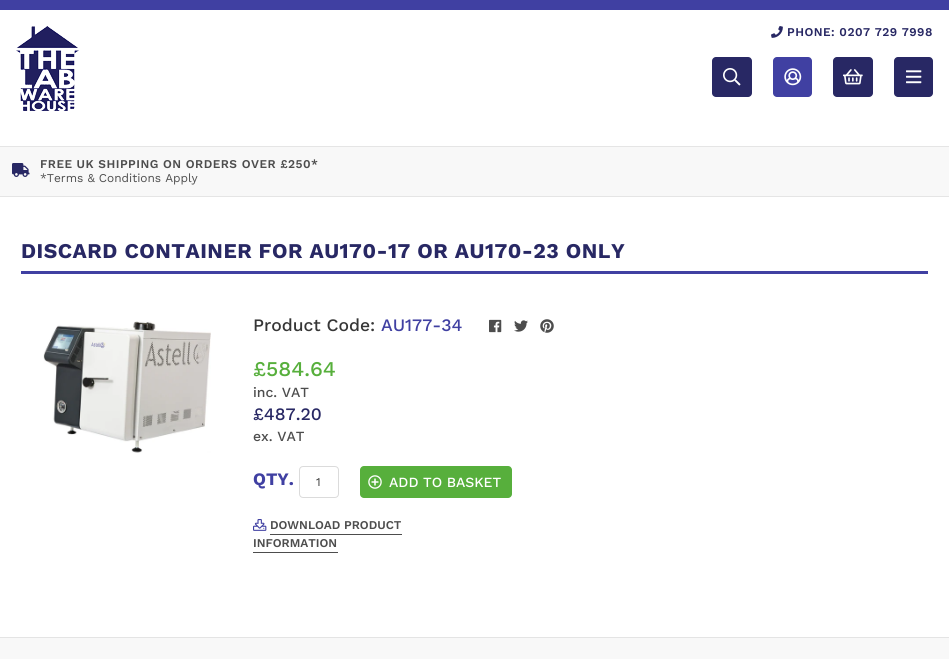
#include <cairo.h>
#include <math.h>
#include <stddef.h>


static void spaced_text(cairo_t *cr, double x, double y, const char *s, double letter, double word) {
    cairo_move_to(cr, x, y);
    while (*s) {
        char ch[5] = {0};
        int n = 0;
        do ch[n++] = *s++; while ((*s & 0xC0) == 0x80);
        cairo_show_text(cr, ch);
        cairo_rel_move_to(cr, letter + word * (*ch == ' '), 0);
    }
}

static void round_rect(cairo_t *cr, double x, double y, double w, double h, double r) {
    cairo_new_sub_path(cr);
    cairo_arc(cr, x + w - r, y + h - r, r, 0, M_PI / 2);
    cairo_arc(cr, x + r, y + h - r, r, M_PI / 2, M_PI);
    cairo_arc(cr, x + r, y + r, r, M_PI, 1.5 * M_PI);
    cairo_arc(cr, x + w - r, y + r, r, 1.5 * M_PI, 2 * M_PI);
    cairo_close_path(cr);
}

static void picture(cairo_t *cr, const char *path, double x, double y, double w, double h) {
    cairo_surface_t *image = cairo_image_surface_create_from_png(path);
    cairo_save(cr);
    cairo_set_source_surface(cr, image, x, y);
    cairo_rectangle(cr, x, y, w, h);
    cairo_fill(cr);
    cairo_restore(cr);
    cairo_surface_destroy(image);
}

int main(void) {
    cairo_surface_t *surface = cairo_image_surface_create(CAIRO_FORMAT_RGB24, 949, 659);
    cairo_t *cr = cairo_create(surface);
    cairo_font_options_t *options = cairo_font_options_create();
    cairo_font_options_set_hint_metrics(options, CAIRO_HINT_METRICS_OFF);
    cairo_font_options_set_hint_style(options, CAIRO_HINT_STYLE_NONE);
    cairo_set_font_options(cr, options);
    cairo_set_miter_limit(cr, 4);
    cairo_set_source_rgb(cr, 1, 1, 1);
    cairo_paint(cr);
    cairo_set_source_rgb(cr, 0.251, 0.251, 0.635);
    cairo_rectangle(cr, 0, 0, 949, 10);
    cairo_fill(cr);
    picture(cr, "img1.png", 16, 26, 63, 85);
    picture(cr, "img2.png", 771, 26, 12, 12);
    cairo_select_font_face(cr, "Work Sans SemiBold", CAIRO_FONT_SLANT_NORMAL, CAIRO_FONT_WEIGHT_NORMAL);
    cairo_set_font_size(cr, 11.9);
    cairo_set_source_rgb(cr, 0.157, 0.157, 0.392);
    spaced_text(cr, 787, 36, "PHONE: 0207 729 7998", 0.5, 0);
    round_rect(cr, 712, 57, 40, 40, 4);
    cairo_fill(cr);
    picture(cr, "img3.png", 723, 68, 18, 18);
    cairo_set_source_rgb(cr, 0.251, 0.251, 0.635);
    round_rect(cr, 773, 57, 39, 40, 4);
    cairo_fill(cr);
    picture(cr, "img4.png", 784, 68, 18, 18);
    cairo_set_source_rgb(cr, 0.157, 0.157, 0.392);
    round_rect(cr, 833, 57, 40, 40, 4);
    cairo_fill(cr);
    picture(cr, "img5.png", 843, 69, 20, 16);
    round_rect(cr, 894, 57, 39, 40, 4);
    cairo_fill(cr);
    picture(cr, "img6.png", 906, 70, 16, 14);
    cairo_set_source_rgb(cr, 0.969, 0.969, 0.969);
    cairo_rectangle(cr, 0, 147, 949, 49);
    cairo_fill(cr);
    cairo_set_source_rgb(cr, 0.898, 0.898, 0.898);
    cairo_rectangle(cr, 0, 146, 949, 1);
    cairo_fill(cr);
    cairo_rectangle(cr, 0, 196, 949, 1);
    cairo_fill(cr);
    picture(cr, "img7.png", 12, 163, 18, 14);
    cairo_set_source_rgb(cr, 0.302, 0.302, 0.302);
    spaced_text(cr, 40, 168, "FREE UK SHIPPING ON ORDERS OVER £250*", 0.5, 0);
    cairo_select_font_face(cr, "Work Sans", CAIRO_FONT_SLANT_NORMAL, CAIRO_FONT_WEIGHT_NORMAL);
    cairo_move_to(cr, 40, 182);
    cairo_show_text(cr, "*Terms & Conditions Apply");
    cairo_set_source_rgb(cr, 0.251, 0.251, 0.635);
    cairo_rectangle(cr, 21, 271, 907, 3);
    cairo_fill(cr);
    cairo_select_font_face(cr, "Work Sans", CAIRO_FONT_SLANT_NORMAL, CAIRO_FONT_WEIGHT_BOLD);
    cairo_set_font_size(cr, 21);
    cairo_set_source_rgb(cr, 0.157, 0.157, 0.392);
    spaced_text(cr, 21, 258, "DISCARD CONTAINER FOR AU170-17 OR AU170-23 ONLY", 0.5, 0);
    picture(cr, "img8.png", 43, 321, 168, 132);
    cairo_select_font_face(cr, "Work Sans Medium", CAIRO_FONT_SLANT_NORMAL, CAIRO_FONT_WEIGHT_NORMAL);
    cairo_set_font_size(cr, 17.5);
    cairo_set_source_rgb(cr, 0.212, 0.212, 0.212);
    cairo_move_to(cr, 253, 331);
    cairo_show_text(cr, "Product Code:");
    cairo_set_source_rgb(cr, 0.251, 0.251, 0.635);
    cairo_move_to(cr, 381, 331);
    cairo_show_text(cr, "AU177-34");
    cairo_set_font_size(cr, 21);
    cairo_set_source_rgb(cr, 0.341, 0.686, 0.235);
    cairo_move_to(cr, 253, 376);
    cairo_show_text(cr, "£584.64");
    cairo_set_font_size(cr, 14);
    cairo_set_source_rgb(cr, 0.302, 0.302, 0.302);
    cairo_move_to(cr, 253, 397);
    cairo_show_text(cr, "inc. VAT");
    cairo_set_font_size(cr, 17.5);
    cairo_set_source_rgb(cr, 0.157, 0.157, 0.392);
    cairo_move_to(cr, 253, 420);
    cairo_show_text(cr, "£487.20");
    cairo_set_font_size(cr, 14);
    cairo_set_source_rgb(cr, 0.302, 0.302, 0.302);
    cairo_move_to(cr, 253, 441);
    cairo_show_text(cr, "ex. VAT");
    cairo_select_font_face(cr, "Work Sans", CAIRO_FONT_SLANT_NORMAL, CAIRO_FONT_WEIGHT_BOLD);
    cairo_set_font_size(cr, 17.5);
    cairo_set_source_rgb(cr, 0.251, 0.251, 0.635);
    cairo_move_to(cr, 253, 485);
    cairo_show_text(cr, "QTY.");
    round_rect(cr, 299.5, 466.5, 39, 31, 3.5);
    cairo_set_source_rgb(cr, 0.859, 0.859, 0.859);
    cairo_set_line_width(cr, 1);
    cairo_stroke(cr);
    cairo_select_font_face(cr, "Work Sans", CAIRO_FONT_SLANT_NORMAL, CAIRO_FONT_WEIGHT_NORMAL);
    cairo_set_font_size(cr, 11.9);
    cairo_set_source_rgb(cr, 0.212, 0.212, 0.212);
    cairo_move_to(cr, 316, 486);
    cairo_show_text(cr, "1");
    cairo_set_source_rgb(cr, 0.341, 0.686, 0.235);
    round_rect(cr, 360, 466, 152, 32, 4);
    cairo_fill(cr);
    picture(cr, "img9.png", 368, 475, 14, 14);
    cairo_select_font_face(cr, "Work Sans Medium", CAIRO_FONT_SLANT_NORMAL, CAIRO_FONT_WEIGHT_NORMAL);
    cairo_set_font_size(cr, 14);
    cairo_set_source_rgb(cr, 1, 1, 1);
    cairo_move_to(cr, 389, 487);
    cairo_show_text(cr, "ADD TO BASKET");
    picture(cr, "img10.png", 253, 519, 14, 12);
    cairo_select_font_face(cr, "Work Sans SemiBold", CAIRO_FONT_SLANT_NORMAL, CAIRO_FONT_WEIGHT_NORMAL);
    cairo_set_font_size(cr, 11.9);
    cairo_set_source_rgb(cr, 0.302, 0.302, 0.302);
    cairo_move_to(cr, 270, 529);
    cairo_show_text(cr, "DOWNLOAD PRODUCT");
    cairo_rectangle(cr, 270, 534, 132, 1);
    cairo_fill(cr);
    cairo_move_to(cr, 253, 547);
    cairo_show_text(cr, "INFORMATION");
    cairo_rectangle(cr, 253, 552, 85, 1);
    cairo_fill(cr);
    picture(cr, "img11.png", 489, 319, 13, 14);
    picture(cr, "img12.png", 514, 320, 14, 12);
    picture(cr, "img13.png", 540, 319, 14, 14);
    cairo_set_source_rgb(cr, 0.969, 0.969, 0.969);
    cairo_rectangle(cr, 0, 638, 949, 21);
    cairo_fill(cr);
    cairo_set_source_rgb(cr, 0.894, 0.894, 0.894);
    cairo_rectangle(cr, 0, 637, 949, 1);
    cairo_fill(cr);
    cairo_surface_write_to_png(surface, "page.png");
    cairo_font_options_destroy(options);
    cairo_destroy(cr);
    cairo_surface_destroy(surface);
    return 0;
}
